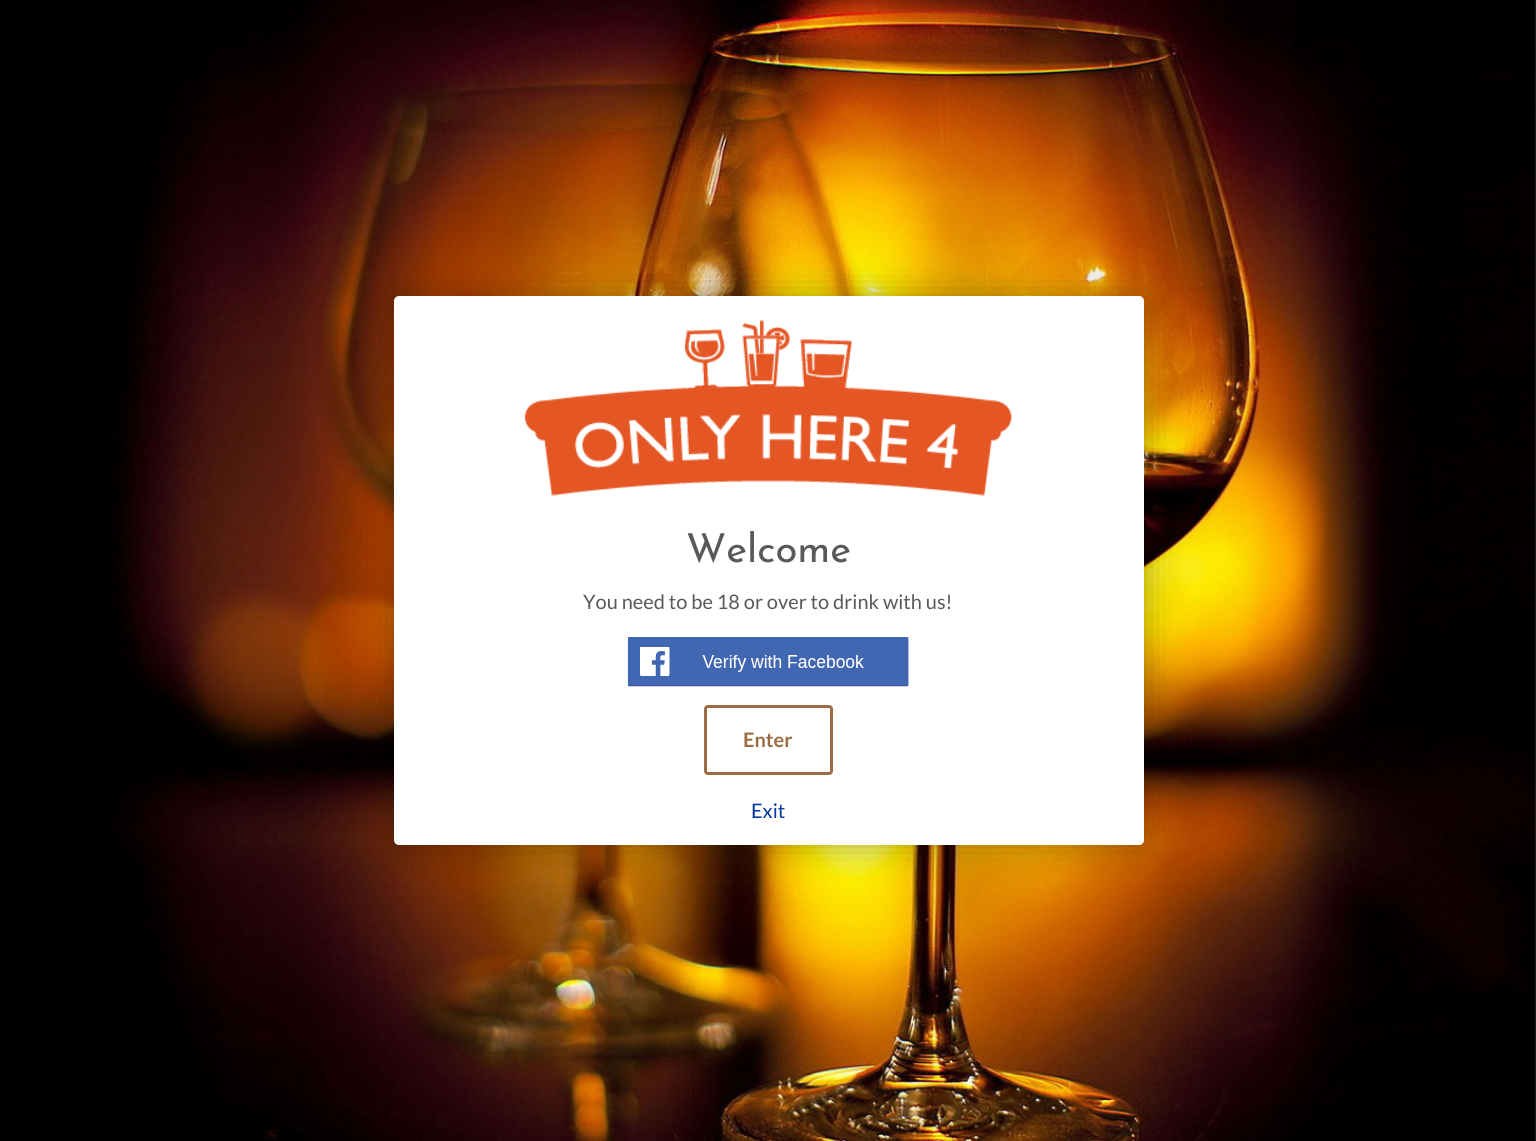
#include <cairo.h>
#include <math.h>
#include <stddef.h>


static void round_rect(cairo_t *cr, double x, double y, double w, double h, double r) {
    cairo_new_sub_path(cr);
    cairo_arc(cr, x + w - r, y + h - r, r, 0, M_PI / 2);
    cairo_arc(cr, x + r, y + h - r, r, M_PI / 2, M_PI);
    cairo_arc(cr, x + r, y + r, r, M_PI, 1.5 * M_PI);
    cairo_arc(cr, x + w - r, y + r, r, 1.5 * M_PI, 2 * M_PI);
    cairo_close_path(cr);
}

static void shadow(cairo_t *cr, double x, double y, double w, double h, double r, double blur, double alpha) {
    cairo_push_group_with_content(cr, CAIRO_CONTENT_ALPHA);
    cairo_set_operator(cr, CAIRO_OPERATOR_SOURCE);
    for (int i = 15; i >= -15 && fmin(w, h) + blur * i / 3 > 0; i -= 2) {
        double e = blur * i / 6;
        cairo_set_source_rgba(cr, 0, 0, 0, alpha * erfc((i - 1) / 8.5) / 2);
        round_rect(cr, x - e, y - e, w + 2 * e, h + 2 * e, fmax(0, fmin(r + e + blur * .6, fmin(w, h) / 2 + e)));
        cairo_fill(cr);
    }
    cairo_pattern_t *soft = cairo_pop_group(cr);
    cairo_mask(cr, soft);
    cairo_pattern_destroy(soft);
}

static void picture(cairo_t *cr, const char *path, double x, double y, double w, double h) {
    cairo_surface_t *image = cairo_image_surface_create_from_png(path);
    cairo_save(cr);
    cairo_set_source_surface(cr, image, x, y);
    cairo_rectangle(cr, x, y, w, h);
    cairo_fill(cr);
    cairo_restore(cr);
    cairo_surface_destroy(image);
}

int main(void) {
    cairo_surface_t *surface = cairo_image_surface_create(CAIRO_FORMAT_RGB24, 1536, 1141);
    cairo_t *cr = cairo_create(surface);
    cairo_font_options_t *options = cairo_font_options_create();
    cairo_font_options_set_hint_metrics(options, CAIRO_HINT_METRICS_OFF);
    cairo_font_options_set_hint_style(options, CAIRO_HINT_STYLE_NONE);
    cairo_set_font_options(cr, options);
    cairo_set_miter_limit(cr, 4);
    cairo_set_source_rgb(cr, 1, 1, 1);
    cairo_paint(cr);
    cairo_set_source_rgb(cr, 0.878, 0.878, 0.878);
    shadow(cr, 0, 51, 1536, 69, 0, 3, 1);
    picture(cr, "img1.png", 0, 0, 1536, 1141);
    cairo_set_source_rgb(cr, 0, 0, 0);
    shadow(cr, 394, 296, 750, 549, 5, 19, 0.35);
    cairo_set_source_rgb(cr, 1, 1, 1);
    round_rect(cr, 394, 296, 750, 549, 5);
    cairo_fill(cr);
    picture(cr, "img2.png", 524, 320, 488, 176);
    cairo_select_font_face(cr, "Josefin Sans Thin", CAIRO_FONT_SLANT_NORMAL, CAIRO_FONT_WEIGHT_NORMAL);
    cairo_set_font_size(cr, 40);
    cairo_set_source_rgb(cr, 0.353, 0.349, 0.349);
    cairo_move_to(cr, 686, 562);
    cairo_show_text(cr, "Welcome");
    cairo_select_font_face(cr, "Lato", CAIRO_FONT_SLANT_NORMAL, CAIRO_FONT_WEIGHT_NORMAL);
    cairo_set_font_size(cr, 20);
    cairo_move_to(cr, 583, 609);
    cairo_show_text(cr, "You need to be 18 or over to drink with us!");
    picture(cr, "img3.png", 627, 637, 282, 50);
    round_rect(cr, 705.5, 706.5, 126, 67, 2.5);
    cairo_set_source_rgb(cr, 0.612, 0.427, 0.263);
    cairo_set_line_width(cr, 3);
    cairo_stroke(cr);
    cairo_select_font_face(cr, "Lato", CAIRO_FONT_SLANT_NORMAL, CAIRO_FONT_WEIGHT_BOLD);
    cairo_move_to(cr, 743, 747);
    cairo_show_text(cr, "Enter");
    cairo_select_font_face(cr, "Lato", CAIRO_FONT_SLANT_NORMAL, CAIRO_FONT_WEIGHT_NORMAL);
    cairo_set_source_rgb(cr, 0.008, 0.212, 0.616);
    cairo_move_to(cr, 751, 818);
    cairo_show_text(cr, "Exit");
    cairo_surface_write_to_png(surface, "page.png");
    cairo_font_options_destroy(options);
    cairo_destroy(cr);
    cairo_surface_destroy(surface);
    return 0;
}
